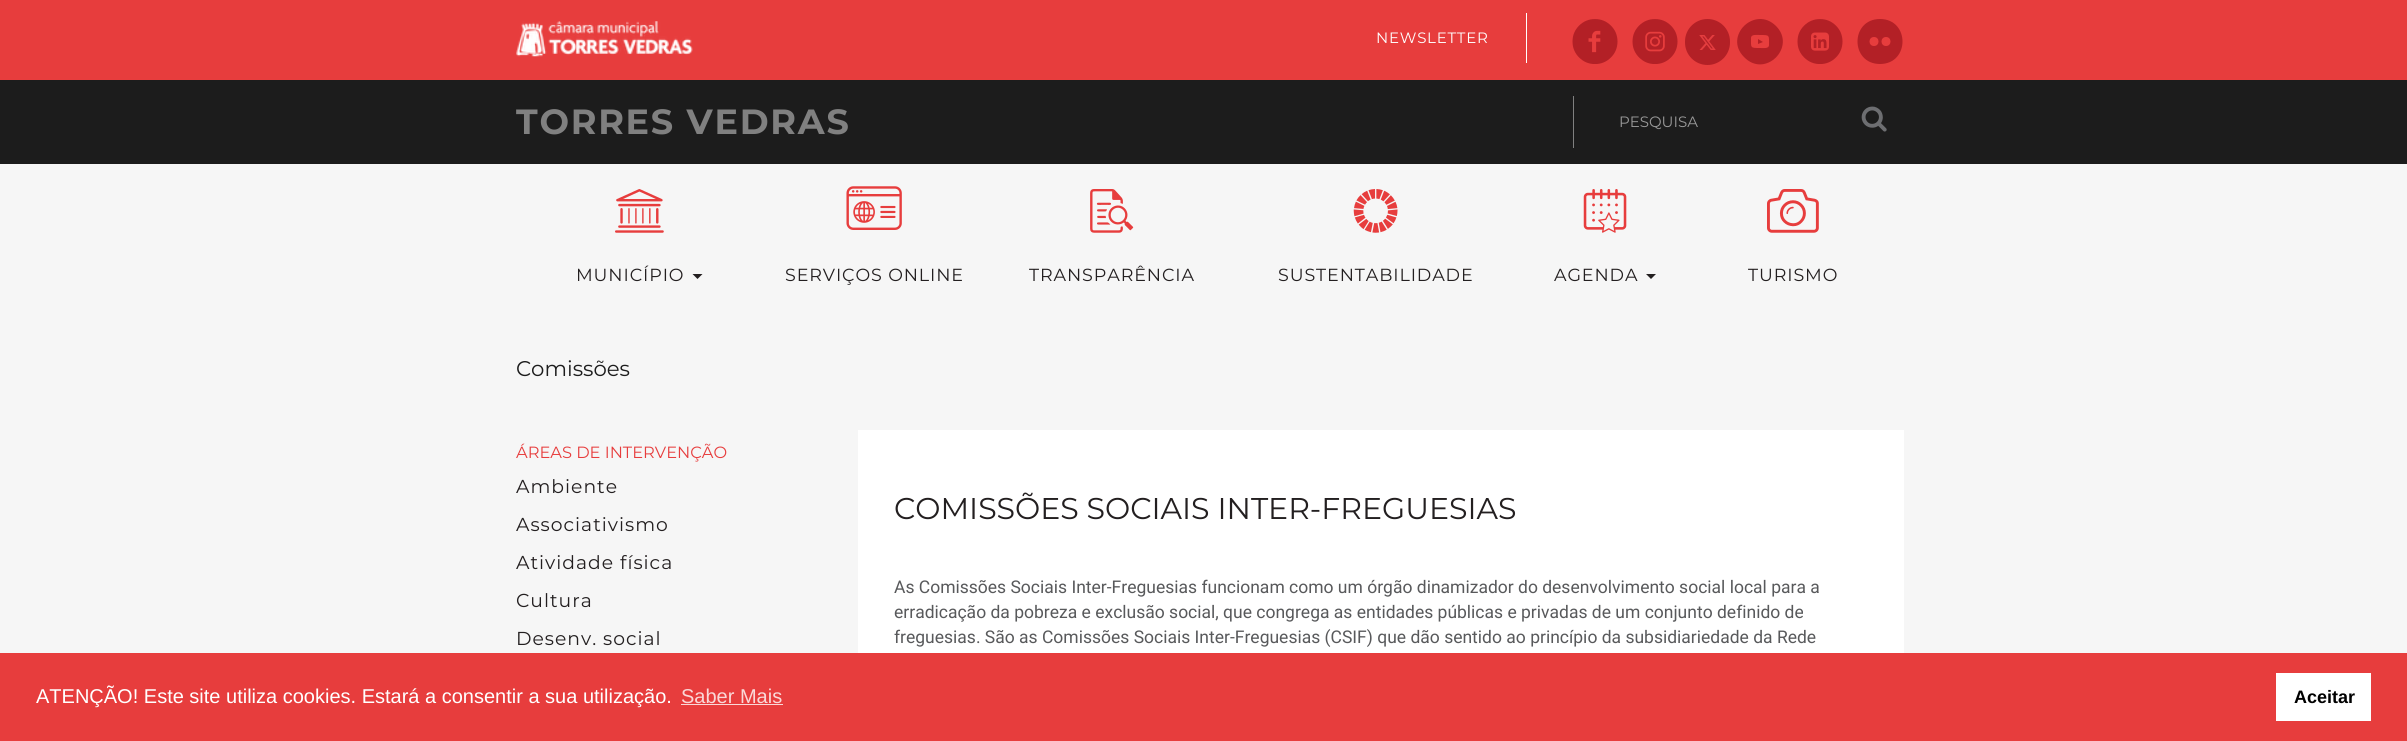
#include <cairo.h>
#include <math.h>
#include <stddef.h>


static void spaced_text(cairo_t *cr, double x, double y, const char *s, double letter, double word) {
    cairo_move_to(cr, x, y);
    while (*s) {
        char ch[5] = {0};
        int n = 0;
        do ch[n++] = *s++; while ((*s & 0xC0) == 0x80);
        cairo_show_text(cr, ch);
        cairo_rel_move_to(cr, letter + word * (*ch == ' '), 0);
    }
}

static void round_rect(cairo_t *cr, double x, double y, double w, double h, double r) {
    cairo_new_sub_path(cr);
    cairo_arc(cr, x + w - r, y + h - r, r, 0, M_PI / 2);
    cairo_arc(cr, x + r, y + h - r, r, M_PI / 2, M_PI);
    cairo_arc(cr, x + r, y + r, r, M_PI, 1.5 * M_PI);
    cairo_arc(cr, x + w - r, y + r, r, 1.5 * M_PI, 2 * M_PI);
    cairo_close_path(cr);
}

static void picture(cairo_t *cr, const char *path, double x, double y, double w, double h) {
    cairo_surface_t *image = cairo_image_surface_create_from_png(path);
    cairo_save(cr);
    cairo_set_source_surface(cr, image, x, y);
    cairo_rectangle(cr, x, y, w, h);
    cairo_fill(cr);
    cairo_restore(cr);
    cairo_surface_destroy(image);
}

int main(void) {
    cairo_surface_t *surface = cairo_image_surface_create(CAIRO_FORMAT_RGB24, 2407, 741);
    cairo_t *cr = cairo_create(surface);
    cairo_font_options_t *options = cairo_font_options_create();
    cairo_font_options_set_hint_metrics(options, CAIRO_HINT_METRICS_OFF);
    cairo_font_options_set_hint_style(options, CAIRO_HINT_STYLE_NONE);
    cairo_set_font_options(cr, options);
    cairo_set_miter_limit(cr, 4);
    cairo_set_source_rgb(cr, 0.961, 0.961, 0.961);
    cairo_paint(cr);
    cairo_set_source_rgb(cr, 0.906, 0.239, 0.239);
    cairo_rectangle(cr, 0, 0, 2407, 80);
    cairo_fill(cr);
    picture(cr, "img1.png", 516, 21, 177, 36);
    cairo_set_source_rgb(cr, 1, 1, 1);
    cairo_rectangle(cr, 1526, 13, 1, 50);
    cairo_fill(cr);
    cairo_select_font_face(cr, "Montserrat", CAIRO_FONT_SLANT_NORMAL, CAIRO_FONT_WEIGHT_NORMAL);
    cairo_set_font_size(cr, 15);
    spaced_text(cr, 1376, 43, "NEWSLETTER", 0.75, 0);
    picture(cr, "img2.png", 1572, 19, 46, 45);
    picture(cr, "img3.png", 1632, 19, 46, 45);
    cairo_set_source_rgb(cr, 0.702, 0.125, 0.149);
    round_rect(cr, 1685, 19, 45, 46, 22.5);
    cairo_fill(cr);
    picture(cr, "img4.png", 1699, 35, 17, 15);
    cairo_new_path(cr);
    cairo_move_to(cr, 1758, 44);
    cairo_line_to(cr, 1763, 42);
    cairo_line_to(cr, 1758, 39);
    cairo_close_path(cr);
    cairo_move_to(cr, 1776, 26);
    cairo_curve_to(cr, 1755, 5, 1723, 36, 1744, 57);
    cairo_curve_to(cr, 1765, 79, 1797, 47, 1776, 26);
    cairo_close_path(cr);
    cairo_move_to(cr, 1769, 45);
    cairo_curve_to(cr, 1769, 49, 1763, 48, 1760, 48);
    cairo_curve_to(cr, 1750, 48, 1751, 48, 1751, 38);
    cairo_curve_to(cr, 1751, 34, 1757, 35, 1760, 35);
    cairo_curve_to(cr, 1770, 35, 1769, 35, 1769, 45);
    cairo_close_path(cr);
    cairo_fill(cr);
    picture(cr, "img5.png", 1797, 19, 46, 45);
    cairo_new_path(cr);
    cairo_move_to(cr, 1880, 19);
    cairo_curve_to(cr, 1910, 19, 1910, 64, 1880, 64);
    cairo_curve_to(cr, 1850, 64, 1850, 19, 1880, 19);
    cairo_close_path(cr);
    cairo_move_to(cr, 1874, 46);
    cairo_curve_to(cr, 1880, 46, 1880, 37, 1874, 37);
    cairo_curve_to(cr, 1868, 37, 1868, 46, 1874, 46);
    cairo_close_path(cr);
    cairo_move_to(cr, 1886, 46);
    cairo_curve_to(cr, 1892, 46, 1892, 37, 1886, 37);
    cairo_curve_to(cr, 1880, 37, 1880, 46, 1886, 46);
    cairo_close_path(cr);
    cairo_fill(cr);
    cairo_set_source_rgb(cr, 0.11, 0.11, 0.11);
    cairo_rectangle(cr, 0, 80, 2407, 84);
    cairo_fill(cr);
    cairo_select_font_face(cr, "Montserrat", CAIRO_FONT_SLANT_NORMAL, CAIRO_FONT_WEIGHT_BOLD);
    cairo_set_font_size(cr, 35);
    cairo_set_source_rgb(cr, 0.502, 0.502, 0.502);
    spaced_text(cr, 516, 134, "TORRES VEDRAS", 1.75, 0);
    cairo_rectangle(cr, 1573, 96, 1, 52);
    cairo_fill(cr);
    cairo_select_font_face(cr, "Montserrat", CAIRO_FONT_SLANT_NORMAL, CAIRO_FONT_WEIGHT_NORMAL);
    cairo_set_font_size(cr, 15);
    cairo_set_source_rgb(cr, 0.6, 0.6, 0.6);
    cairo_move_to(cr, 1619, 127);
    cairo_show_text(cr, "PESQUISA");
    picture(cr, "img6.png", 1861, 106, 26, 26);
    picture(cr, "img7.png", 615, 189, 49, 44);
    cairo_set_font_size(cr, 17.5);
    cairo_set_source_rgb(cr, 0.137, 0.122, 0.125);
    spaced_text(cr, 576, 281, "MUNICÍPIO", 0.9, 0);
    cairo_new_path(cr);
    cairo_move_to(cr, 692.5, 274);
    cairo_line_to(cr, 702.5, 274);
    cairo_line_to(cr, 697.5, 279);
    cairo_close_path(cr);
    cairo_fill(cr);
    picture(cr, "img8.png", 846, 186, 56, 44);
    spaced_text(cr, 785, 281, "SERVIÇOS ONLINE", 0.9, 0);
    picture(cr, "img9.png", 1090, 189, 44, 44);
    spaced_text(cr, 1029, 281, "TRANSPARÊNCIA", 0.9, 0);
    picture(cr, "img10.png", 1353, 189, 45, 44);
    spaced_text(cr, 1278, 281, "SUSTENTABILIDADE", 0.9, 0);
    picture(cr, "img11.png", 1583, 189, 44, 44);
    spaced_text(cr, 1554, 281, "AGENDA", 0.9, 0);
    cairo_new_path(cr);
    cairo_move_to(cr, 1646, 274);
    cairo_line_to(cr, 1656, 274);
    cairo_line_to(cr, 1651, 279);
    cairo_close_path(cr);
    cairo_fill(cr);
    picture(cr, "img12.png", 1767, 189, 52, 44);
    spaced_text(cr, 1748, 281, "TURISMO", 0.9, 0);
    cairo_set_font_size(cr, 21.25);
    cairo_set_source_rgb(cr, 0.11, 0.11, 0.11);
    cairo_move_to(cr, 516, 376);
    cairo_show_text(cr, "Comissões");
    cairo_set_font_size(cr, 16.25);
    cairo_set_source_rgb(cr, 0.906, 0.239, 0.239);
    cairo_move_to(cr, 516, 458);
    cairo_show_text(cr, "ÁREAS DE INTERVENÇÃO");
    cairo_set_font_size(cr, 18.75);
    cairo_set_source_rgb(cr, 0.137, 0.122, 0.125);
    spaced_text(cr, 516, 493, "Ambiente", 1, 0);
    spaced_text(cr, 516, 531, "Associativismo", 1, 0);
    spaced_text(cr, 516, 569, "Atividade física", 1, 0);
    spaced_text(cr, 516, 607, "Cultura", 1, 0);
    spaced_text(cr, 516, 645, "Desenv. social", 1, 0);
    cairo_set_source_rgb(cr, 1, 1, 1);
    cairo_rectangle(cr, 858, 430, 1046, 223);
    cairo_fill(cr);
    cairo_set_font_size(cr, 30);
    cairo_set_source_rgb(cr, 0.137, 0.122, 0.125);
    cairo_move_to(cr, 894, 519);
    cairo_show_text(cr, "COMISSÕES SOCIAIS INTER-FREGUESIAS");
    cairo_select_font_face(cr, "Roboto", CAIRO_FONT_SLANT_NORMAL, CAIRO_FONT_WEIGHT_NORMAL);
    cairo_set_font_size(cr, 17.5);
    cairo_set_source_rgb(cr, 0.345, 0.349, 0.357);
    cairo_move_to(cr, 894, 593);
    cairo_show_text(cr, "As Comissões Sociais Inter-Freguesias funcionam como um órgão dinamizador do desenvolvimento social local para a");
    cairo_move_to(cr, 894, 618);
    cairo_show_text(cr, "erradicação da pobreza e exclusão social, que congrega as entidades públicas e privadas de um conjunto definido de");
    cairo_move_to(cr, 894, 643);
    cairo_show_text(cr, "freguesias. São as Comissões Sociais Inter-Freguesias (CSIF) que dão sentido ao princípio da subsidiariedade da Rede");
    cairo_set_source_rgb(cr, 0.906, 0.239, 0.239);
    cairo_rectangle(cr, 0, 653, 2407, 88);
    cairo_fill(cr);
    cairo_select_font_face(cr, "Liberation Sans", CAIRO_FONT_SLANT_NORMAL, CAIRO_FONT_WEIGHT_NORMAL);
    cairo_set_font_size(cr, 20);
    cairo_set_source_rgb(cr, 1, 1, 1);
    cairo_move_to(cr, 36, 703);
    cairo_show_text(cr, "ATENÇÃO! Este site utiliza cookies. Estará a consentir a sua utilização.");
    cairo_set_source_rgb(cr, 0.98, 0.847, 0.847);
    cairo_move_to(cr, 681, 703);
    cairo_show_text(cr, "Saber Mais");
    cairo_rectangle(cr, 681, 704, 102, 1);
    cairo_fill(cr);
    cairo_set_source_rgb(cr, 1, 1, 1);
    cairo_rectangle(cr, 2276, 673, 95, 48);
    cairo_fill(cr);
    cairo_select_font_face(cr, "Liberation Sans", CAIRO_FONT_SLANT_NORMAL, CAIRO_FONT_WEIGHT_BOLD);
    cairo_set_font_size(cr, 18);
    cairo_set_source_rgb(cr, 0, 0, 0);
    cairo_move_to(cr, 2294, 703);
    cairo_show_text(cr, "Aceitar");
    cairo_surface_write_to_png(surface, "page.png");
    cairo_font_options_destroy(options);
    cairo_destroy(cr);
    cairo_surface_destroy(surface);
    return 0;
}
